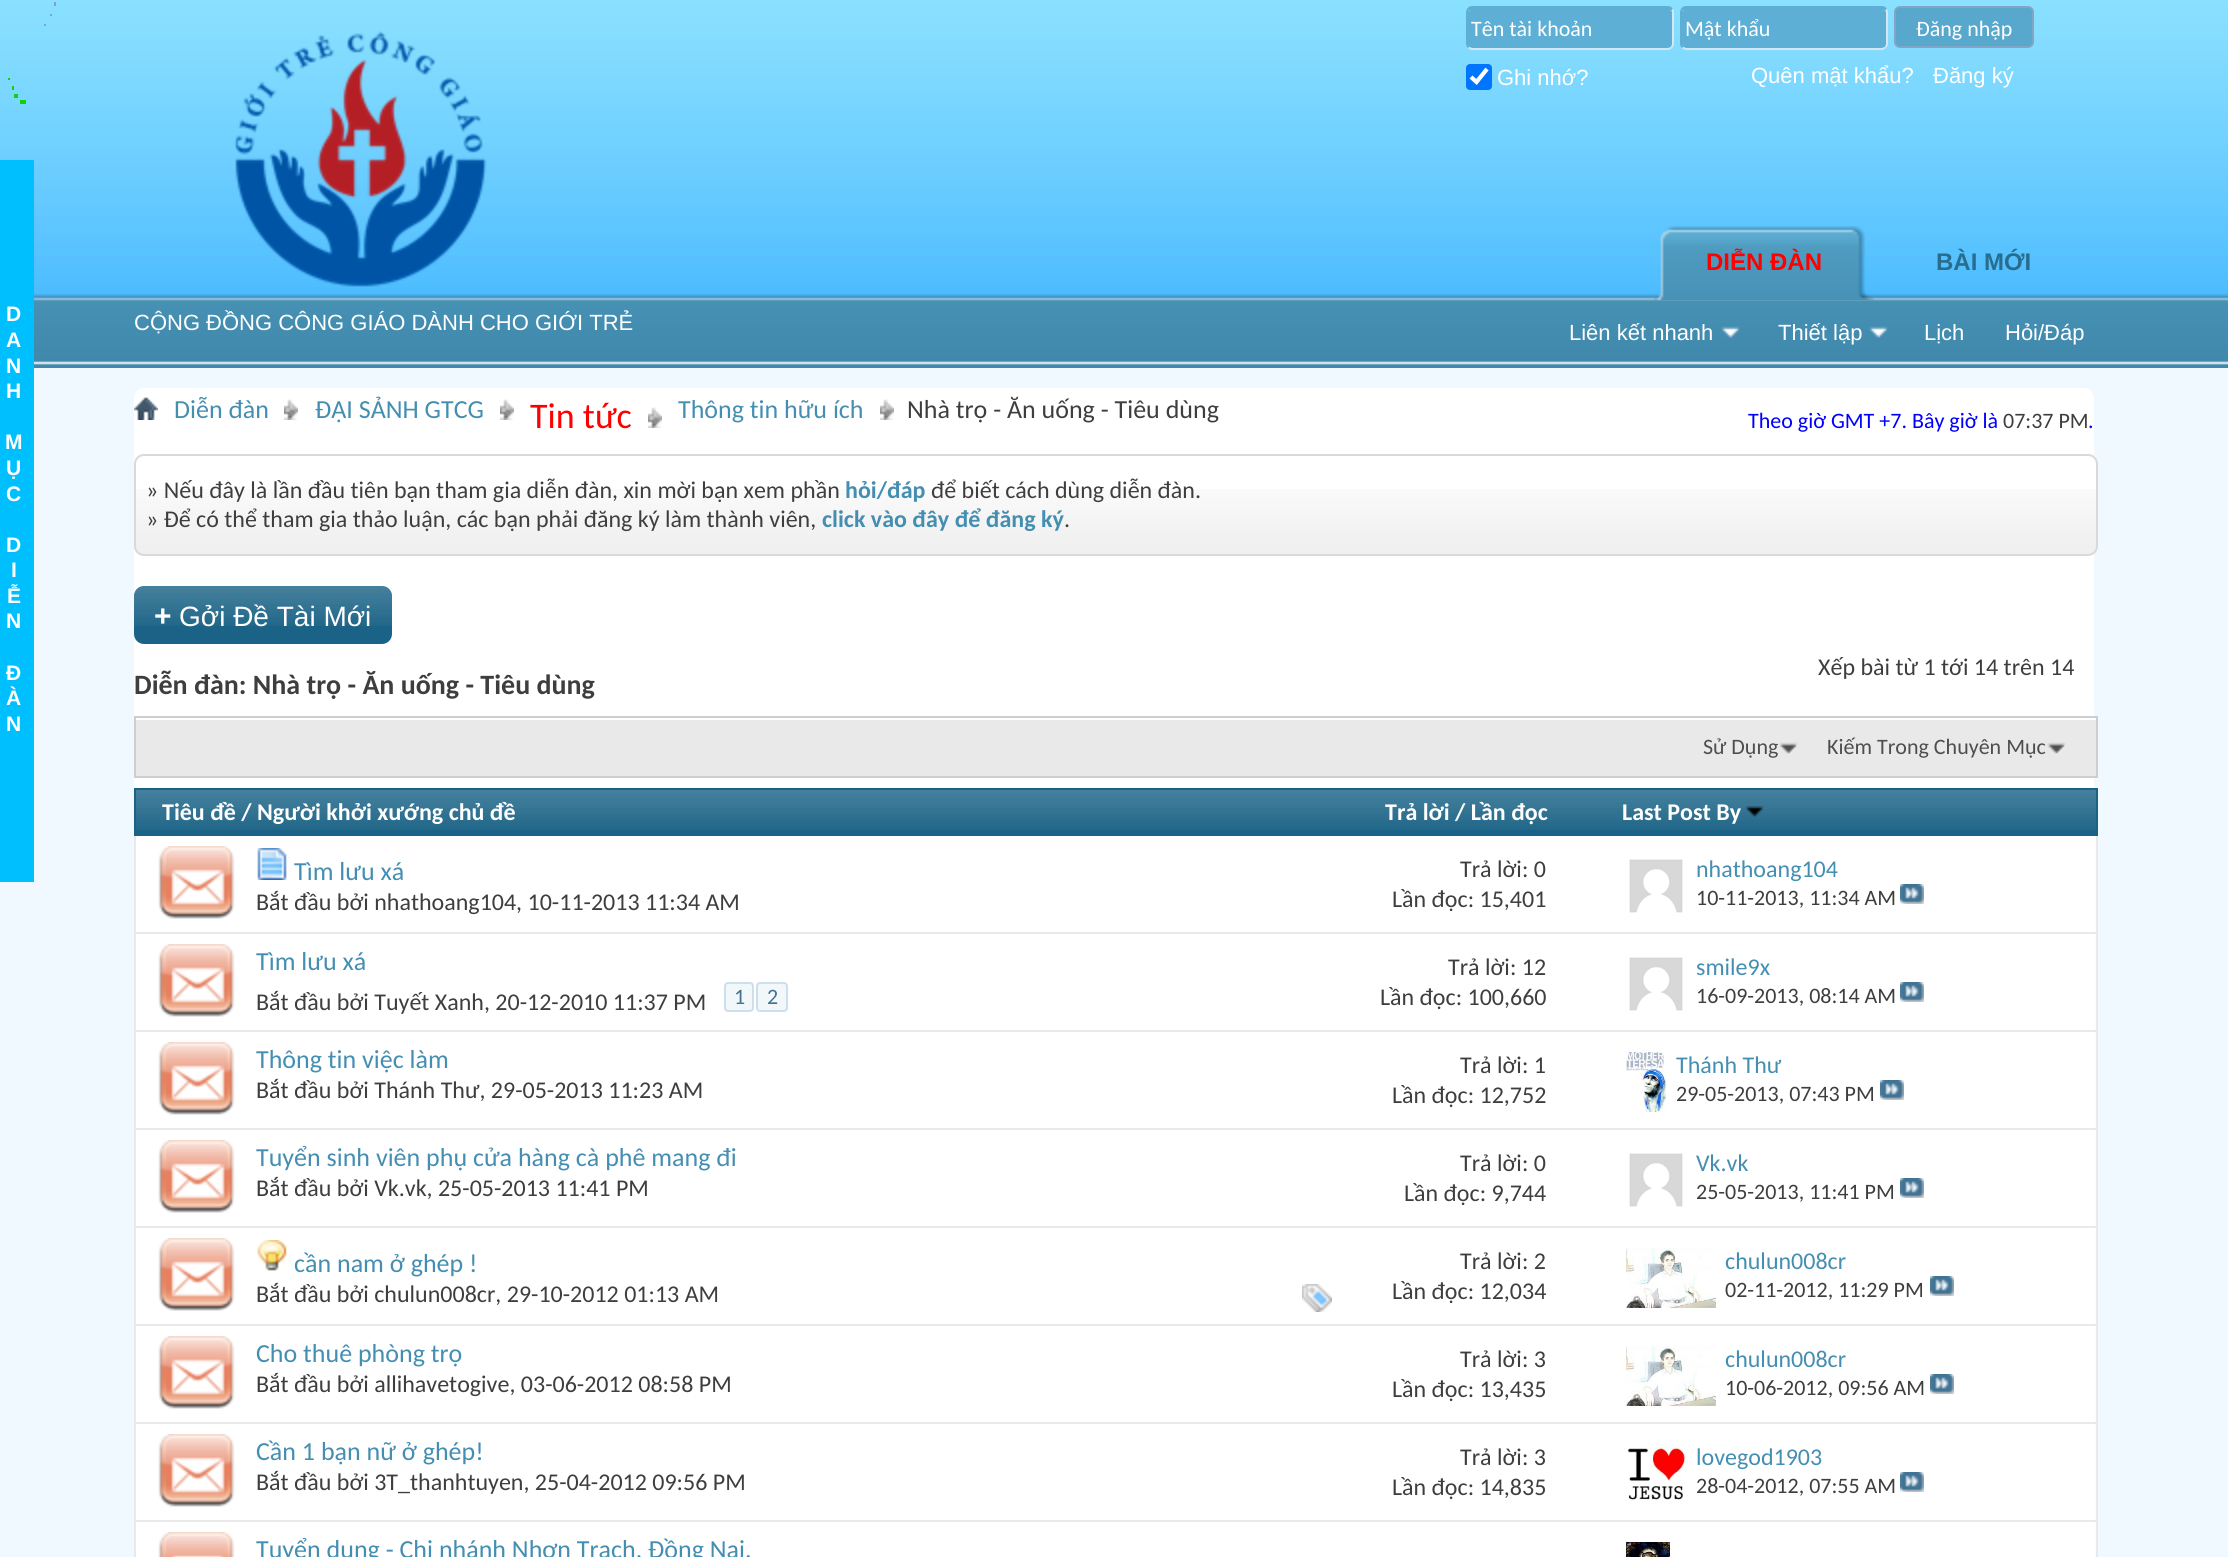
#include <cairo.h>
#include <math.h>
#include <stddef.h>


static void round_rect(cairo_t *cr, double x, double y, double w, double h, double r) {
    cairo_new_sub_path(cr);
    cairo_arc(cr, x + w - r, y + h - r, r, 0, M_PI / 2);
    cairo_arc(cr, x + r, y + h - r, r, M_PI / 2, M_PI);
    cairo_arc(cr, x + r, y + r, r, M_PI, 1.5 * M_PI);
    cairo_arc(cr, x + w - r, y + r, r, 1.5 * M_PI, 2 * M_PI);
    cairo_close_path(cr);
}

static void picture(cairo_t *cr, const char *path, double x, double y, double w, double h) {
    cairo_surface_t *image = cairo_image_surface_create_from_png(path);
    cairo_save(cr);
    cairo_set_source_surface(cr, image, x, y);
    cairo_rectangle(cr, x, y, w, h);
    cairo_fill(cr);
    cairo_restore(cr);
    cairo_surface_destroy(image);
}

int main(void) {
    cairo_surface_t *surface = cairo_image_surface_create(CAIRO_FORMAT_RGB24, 2228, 1557);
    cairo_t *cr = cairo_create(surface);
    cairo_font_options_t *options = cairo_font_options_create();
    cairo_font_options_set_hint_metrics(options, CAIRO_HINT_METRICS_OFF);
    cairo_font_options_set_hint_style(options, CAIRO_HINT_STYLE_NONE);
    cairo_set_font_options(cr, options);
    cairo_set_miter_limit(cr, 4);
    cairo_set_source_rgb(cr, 0.941, 0.973, 1);
    cairo_paint(cr);
    picture(cr, "img1.png", 0, 0, 2228, 294);
    picture(cr, "img2.png", 34, 294, 2194, 74);
    cairo_set_source_rgb(cr, 0.494, 0.62, 0.898);
    cairo_rectangle(cr, 54, 2, 2, 4);
    cairo_fill(cr);
    cairo_rectangle(cr, 50, 14, 2, 2);
    cairo_fill(cr);
    cairo_rectangle(cr, 44, 24, 2, 2);
    cairo_fill(cr);
    picture(cr, "img3.png", 234, 31, 253, 256);
    cairo_set_source_rgb(cr, 0.369, 0.686, 0.835);
    cairo_new_path(cr);
    cairo_move_to(cr, 1472, 10);
    cairo_line_to(cr, 1668, 10);
    cairo_curve_to(cr, 1670, 10, 1672, 11, 1672, 12);
    cairo_line_to(cr, 1672, 44);
    cairo_curve_to(cr, 1672, 46, 1670, 48, 1668, 48);
    cairo_line_to(cr, 1472, 48);
    cairo_curve_to(cr, 1470, 48, 1468, 46, 1468, 44);
    cairo_line_to(cr, 1468, 12);
    cairo_curve_to(cr, 1468, 11, 1470, 10, 1472, 10);
    cairo_close_path(cr);
    cairo_fill(cr);
    cairo_new_path(cr);
    cairo_move_to(cr, 1472, 6);
    cairo_curve_to(cr, 1470, 6, 1468, 7, 1467, 9);
    cairo_line_to(cr, 1469, 11);
    cairo_curve_to(cr, 1469, 10, 1471, 10, 1472, 10);
    cairo_line_to(cr, 1668, 10);
    cairo_curve_to(cr, 1669, 10, 1671, 10, 1671, 11);
    cairo_line_to(cr, 1673, 9);
    cairo_curve_to(cr, 1672, 7, 1670, 6, 1668, 6);
    cairo_close_path(cr);
    cairo_fill(cr);
    cairo_set_source_rgb(cr, 0.824, 0.91, 0.957);
    cairo_new_path(cr);
    cairo_move_to(cr, 1674, 44);
    cairo_line_to(cr, 1674, 12);
    cairo_curve_to(cr, 1674, 11, 1673.5, 9.5, 1672.5, 8.5);
    cairo_line_to(cr, 1671.5, 11);
    cairo_line_to(cr, 1672, 12);
    cairo_line_to(cr, 1672, 44.5);
    cairo_line_to(cr, 1671, 47);
    cairo_line_to(cr, 1672, 48);
    cairo_curve_to(cr, 1673, 47, 1674, 45.5, 1674, 44);
    cairo_close_path(cr);
    cairo_fill(cr);
    cairo_new_path(cr);
    cairo_move_to(cr, 1472, 50);
    cairo_line_to(cr, 1669, 50);
    cairo_line_to(cr, 1672, 48);
    cairo_line_to(cr, 1671, 47);
    cairo_line_to(cr, 1668, 48);
    cairo_line_to(cr, 1472, 48);
    cairo_line_to(cr, 1469, 47);
    cairo_line_to(cr, 1468, 48);
    cairo_curve_to(cr, 1469, 49, 1470, 50, 1472, 50);
    cairo_close_path(cr);
    cairo_fill(cr);
    cairo_set_source_rgb(cr, 0.369, 0.686, 0.835);
    cairo_new_path(cr);
    cairo_move_to(cr, 1466, 12);
    cairo_line_to(cr, 1466, 44);
    cairo_curve_to(cr, 1466, 45.5, 1467, 47, 1468, 48);
    cairo_line_to(cr, 1469, 47);
    cairo_line_to(cr, 1468, 44.5);
    cairo_line_to(cr, 1468, 12);
    cairo_line_to(cr, 1468.5, 11);
    cairo_line_to(cr, 1467.5, 8.5);
    cairo_curve_to(cr, 1466.5, 9.5, 1466, 11, 1466, 12);
    cairo_close_path(cr);
    cairo_fill(cr);
    cairo_select_font_face(cr, "Carlito", CAIRO_FONT_SLANT_NORMAL, CAIRO_FONT_WEIGHT_NORMAL);
    cairo_set_font_size(cr, 22);
    cairo_set_source_rgb(cr, 1, 1, 1);
    cairo_move_to(cr, 1471, 36);
    cairo_show_text(cr, "Tên tài khoản");
    cairo_set_source_rgb(cr, 0.369, 0.686, 0.835);
    cairo_new_path(cr);
    cairo_move_to(cr, 1686, 10);
    cairo_line_to(cr, 1882, 10);
    cairo_curve_to(cr, 1884, 10, 1886, 11, 1886, 12);
    cairo_line_to(cr, 1886, 44);
    cairo_curve_to(cr, 1886, 46, 1884, 48, 1882, 48);
    cairo_line_to(cr, 1686, 48);
    cairo_curve_to(cr, 1684, 48, 1682, 46, 1682, 44);
    cairo_line_to(cr, 1682, 12);
    cairo_curve_to(cr, 1682, 11, 1684, 10, 1686, 10);
    cairo_close_path(cr);
    cairo_fill(cr);
    cairo_new_path(cr);
    cairo_move_to(cr, 1686, 6);
    cairo_curve_to(cr, 1684, 6, 1682, 7, 1681, 9);
    cairo_line_to(cr, 1683, 11);
    cairo_curve_to(cr, 1683, 10, 1685, 10, 1686, 10);
    cairo_line_to(cr, 1882, 10);
    cairo_curve_to(cr, 1883, 10, 1885, 10, 1885, 11);
    cairo_line_to(cr, 1887, 9);
    cairo_curve_to(cr, 1886, 7, 1884, 6, 1882, 6);
    cairo_close_path(cr);
    cairo_fill(cr);
    cairo_set_source_rgb(cr, 0.824, 0.91, 0.957);
    cairo_new_path(cr);
    cairo_move_to(cr, 1888, 44);
    cairo_line_to(cr, 1888, 12);
    cairo_curve_to(cr, 1888, 11, 1887.5, 9.5, 1886.5, 8.5);
    cairo_line_to(cr, 1885.5, 11);
    cairo_line_to(cr, 1886, 12);
    cairo_line_to(cr, 1886, 44.5);
    cairo_line_to(cr, 1885, 47);
    cairo_line_to(cr, 1886, 48);
    cairo_curve_to(cr, 1887, 47, 1888, 45.5, 1888, 44);
    cairo_close_path(cr);
    cairo_fill(cr);
    cairo_new_path(cr);
    cairo_move_to(cr, 1686, 50);
    cairo_line_to(cr, 1883, 50);
    cairo_line_to(cr, 1886, 48);
    cairo_line_to(cr, 1885, 47);
    cairo_line_to(cr, 1882, 48);
    cairo_line_to(cr, 1686, 48);
    cairo_line_to(cr, 1683, 47);
    cairo_line_to(cr, 1682, 48);
    cairo_curve_to(cr, 1683, 49, 1684, 50, 1686, 50);
    cairo_close_path(cr);
    cairo_fill(cr);
    cairo_set_source_rgb(cr, 0.369, 0.686, 0.835);
    cairo_new_path(cr);
    cairo_move_to(cr, 1680, 12);
    cairo_line_to(cr, 1680, 44);
    cairo_curve_to(cr, 1680, 45.5, 1681, 47, 1682, 48);
    cairo_line_to(cr, 1683, 47);
    cairo_line_to(cr, 1682, 44.5);
    cairo_line_to(cr, 1682, 12);
    cairo_line_to(cr, 1682.5, 11);
    cairo_line_to(cr, 1681.5, 8.5);
    cairo_curve_to(cr, 1680.5, 9.5, 1680, 11, 1680, 12);
    cairo_close_path(cr);
    cairo_fill(cr);
    cairo_set_source_rgb(cr, 1, 1, 1);
    cairo_move_to(cr, 1685, 36);
    cairo_show_text(cr, "Mật khẩu");
    cairo_set_source_rgb(cr, 0.345, 0.655, 0.8);
    round_rect(cr, 1895, 7, 138, 40, 5);
    cairo_fill_preserve(cr);
    cairo_set_source_rgb(cr, 0.514, 0.647, 0.773);
    cairo_stroke(cr);
    cairo_set_source_rgb(cr, 1, 1, 1);
    cairo_move_to(cr, 1916, 36);
    cairo_show_text(cr, "Ðăng nhập");
    cairo_set_source_rgb(cr, 0, 0.459, 1);
    round_rect(cr, 1466, 64, 26, 26, 4);
    cairo_fill(cr);
    cairo_new_path(cr);
    cairo_move_to(cr, 1471, 77);
    cairo_line_to(cr, 1476.5, 82);
    cairo_line_to(cr, 1487, 69);
    cairo_set_source_rgb(cr, 1, 1, 1);
    cairo_set_line_width(cr, 4.2);
    cairo_stroke(cr);
    cairo_select_font_face(cr, "Liberation Sans", CAIRO_FONT_SLANT_NORMAL, CAIRO_FONT_WEIGHT_NORMAL);
    cairo_move_to(cr, 1497, 85);
    cairo_show_text(cr, "Ghi nhớ?");
    cairo_move_to(cr, 1751, 83);
    cairo_show_text(cr, "Quên mật khẩu?");
    cairo_move_to(cr, 1933, 83);
    cairo_show_text(cr, "Đăng ký");
    cairo_move_to(cr, 134, 330);
    cairo_show_text(cr, "CỘNG ĐỒNG CÔNG GIÁO DÀNH CHO GIỚI TRẺ");
    cairo_set_source_rgb(cr, 0.082, 0.82, 0.031);
    cairo_rectangle(cr, 8, 78, 2, 2);
    cairo_fill(cr);
    cairo_rectangle(cr, 12, 86, 2, 4);
    cairo_fill(cr);
    cairo_rectangle(cr, 14, 94, 4, 4);
    cairo_fill(cr);
    cairo_rectangle(cr, 20, 100, 6, 4);
    cairo_fill(cr);
    cairo_set_source_rgb(cr, 0, 0.749, 1);
    cairo_rectangle(cr, 0, 160, 34, 722);
    cairo_fill(cr);
    cairo_select_font_face(cr, "Liberation Sans", CAIRO_FONT_SLANT_NORMAL, CAIRO_FONT_WEIGHT_BOLD);
    cairo_set_font_size(cr, 21);
    cairo_set_source_rgb(cr, 1, 1, 1);
    cairo_move_to(cr, 6, 321);
    cairo_show_text(cr, "D");
    cairo_move_to(cr, 6, 347);
    cairo_show_text(cr, "A");
    cairo_move_to(cr, 6, 373);
    cairo_show_text(cr, "N");
    cairo_move_to(cr, 6, 398);
    cairo_show_text(cr, "H");
    cairo_move_to(cr, 5, 449);
    cairo_show_text(cr, "M");
    cairo_move_to(cr, 6, 475);
    cairo_show_text(cr, "Ụ");
    cairo_move_to(cr, 6, 501);
    cairo_show_text(cr, "C");
    cairo_move_to(cr, 6, 552);
    cairo_show_text(cr, "D");
    cairo_move_to(cr, 11, 577);
    cairo_show_text(cr, "I");
    cairo_move_to(cr, 7, 603);
    cairo_show_text(cr, "Ễ");
    cairo_move_to(cr, 6, 628);
    cairo_show_text(cr, "N");
    cairo_move_to(cr, 6, 680);
    cairo_show_text(cr, "Đ");
    cairo_move_to(cr, 6, 705);
    cairo_show_text(cr, "À");
    cairo_move_to(cr, 6, 731);
    cairo_show_text(cr, "N");
    picture(cr, "img4.png", 1654, 226, 220, 74);
    cairo_set_font_size(cr, 24);
    cairo_set_source_rgb(cr, 1, 0, 0);
    cairo_move_to(cr, 1706, 270);
    cairo_show_text(cr, "DIỄN ĐÀN");
    cairo_select_font_face(cr, "Liberation Sans", CAIRO_FONT_SLANT_NORMAL, CAIRO_FONT_WEIGHT_NORMAL);
    cairo_set_font_size(cr, 22);
    cairo_set_source_rgb(cr, 1, 1, 1);
    cairo_move_to(cr, 1569, 340);
    cairo_show_text(cr, "Liên kết nhanh");
    picture(cr, "img5.png", 1721, 326, 19, 12);
    cairo_move_to(cr, 1778, 340);
    cairo_show_text(cr, "Thiết lập");
    picture(cr, "img5.png", 1869, 326, 19, 12);
    cairo_move_to(cr, 1924, 340);
    cairo_show_text(cr, "Lịch");
    cairo_move_to(cr, 2005, 340);
    cairo_show_text(cr, "Hỏi/Ðáp");
    cairo_select_font_face(cr, "Liberation Sans", CAIRO_FONT_SLANT_NORMAL, CAIRO_FONT_WEIGHT_BOLD);
    cairo_set_font_size(cr, 24);
    cairo_set_source_rgb(cr, 0.157, 0.427, 0.557);
    cairo_move_to(cr, 1936, 270);
    cairo_show_text(cr, "BÀI MỚI");
    cairo_set_source_rgb(cr, 1, 1, 1);
    round_rect(cr, 134, 388, 1960, 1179, 10);
    cairo_fill(cr);
    picture(cr, "img6.png", 134, 397, 24, 23);
    picture(cr, "img7.png", 284, 399, 14, 21);
    cairo_select_font_face(cr, "Carlito", CAIRO_FONT_SLANT_NORMAL, CAIRO_FONT_WEIGHT_NORMAL);
    cairo_set_font_size(cr, 26);
    cairo_set_source_rgb(cr, 0.267, 0.557, 0.694);
    cairo_move_to(cr, 174, 418);
    cairo_show_text(cr, "Diễn đàn");
    picture(cr, "img7.png", 500, 399, 14, 21);
    cairo_move_to(cr, 315, 418);
    cairo_show_text(cr, "ĐẠI SẢNH GTCG");
    picture(cr, "img7.png", 648, 407, 14, 21);
    cairo_set_font_size(cr, 36);
    cairo_set_source_rgb(cr, 1, 0, 0);
    cairo_move_to(cr, 530, 428);
    cairo_show_text(cr, "Tin tức");
    picture(cr, "img7.png", 880, 399, 14, 21);
    cairo_set_font_size(cr, 26);
    cairo_set_source_rgb(cr, 0.267, 0.557, 0.694);
    cairo_move_to(cr, 678, 418);
    cairo_show_text(cr, "Thông tin hữu ích");
    cairo_set_source_rgb(cr, 0.243, 0.243, 0.243);
    cairo_move_to(cr, 907, 418);
    cairo_show_text(cr, "Nhà trọ - Ăn uống - Tiêu dùng");
    cairo_set_font_size(cr, 22);
    cairo_set_source_rgb(cr, 0, 0, 1);
    cairo_move_to(cr, 1748, 428);
    cairo_show_text(cr, "Theo giờ GMT +7. Bây giờ là");
    cairo_set_source_rgb(cr, 0.243, 0.243, 0.243);
    cairo_move_to(cr, 2003, 428);
    cairo_show_text(cr, "07:37 PM");
    cairo_set_source_rgb(cr, 0, 0, 1);
    cairo_move_to(cr, 2088, 428);
    cairo_show_text(cr, ".");
    cairo_set_source_rgb(cr, 1, 1, 1);
    round_rect(cr, 134, 454, 1964, 102, 10);
    cairo_fill(cr);
    picture(cr, "img8.png", 134, 489, 1964, 65);
    round_rect(cr, 135, 455, 1962, 100, 9);
    cairo_set_source_rgb(cr, 0.851, 0.851, 0.851);
    cairo_set_line_width(cr, 2);
    cairo_stroke(cr);
    cairo_set_font_size(cr, 24);
    cairo_set_source_rgb(cr, 0.243, 0.243, 0.243);
    cairo_move_to(cr, 146, 498);
    cairo_show_text(cr, "» Nếu đây là lần đầu tiên bạn tham gia diễn đàn, xin mời bạn xem phần");
    cairo_select_font_face(cr, "Carlito", CAIRO_FONT_SLANT_NORMAL, CAIRO_FONT_WEIGHT_BOLD);
    cairo_set_source_rgb(cr, 0.267, 0.557, 0.694);
    cairo_move_to(cr, 845, 498);
    cairo_show_text(cr, "hỏi/đáp");
    cairo_select_font_face(cr, "Carlito", CAIRO_FONT_SLANT_NORMAL, CAIRO_FONT_WEIGHT_NORMAL);
    cairo_set_source_rgb(cr, 0.243, 0.243, 0.243);
    cairo_move_to(cr, 931, 498);
    cairo_show_text(cr, "để biết cách dùng diễn đàn.");
    cairo_move_to(cr, 146, 527);
    cairo_show_text(cr, "» Để có thể tham gia thảo luận, các bạn phải đăng ký làm thành viên,");
    cairo_select_font_face(cr, "Carlito", CAIRO_FONT_SLANT_NORMAL, CAIRO_FONT_WEIGHT_BOLD);
    cairo_set_source_rgb(cr, 0.267, 0.557, 0.694);
    cairo_move_to(cr, 822, 527);
    cairo_show_text(cr, "click vào đây để đăng ký");
    cairo_select_font_face(cr, "Carlito", CAIRO_FONT_SLANT_NORMAL, CAIRO_FONT_WEIGHT_NORMAL);
    cairo_set_source_rgb(cr, 0.243, 0.243, 0.243);
    cairo_move_to(cr, 1064, 527);
    cairo_show_text(cr, ".");
    cairo_set_source_rgb(cr, 0.106, 0.388, 0.525);
    round_rect(cr, 134, 586, 258, 58, 10);
    cairo_fill(cr);
    picture(cr, "img9.png", 134, 586, 258, 40);
    cairo_select_font_face(cr, "Liberation Sans", CAIRO_FONT_SLANT_NORMAL, CAIRO_FONT_WEIGHT_BOLD);
    cairo_set_font_size(cr, 30);
    cairo_set_source_rgb(cr, 1, 1, 1);
    cairo_move_to(cr, 154, 626);
    cairo_show_text(cr, "+");
    cairo_select_font_face(cr, "Liberation Sans", CAIRO_FONT_SLANT_NORMAL, CAIRO_FONT_WEIGHT_NORMAL);
    cairo_set_font_size(cr, 28);
    cairo_move_to(cr, 179, 626);
    cairo_show_text(cr, "Gởi Ðề Tài Mới");
    cairo_select_font_face(cr, "Carlito", CAIRO_FONT_SLANT_NORMAL, CAIRO_FONT_WEIGHT_NORMAL);
    cairo_set_font_size(cr, 24);
    cairo_set_source_rgb(cr, 0.243, 0.243, 0.243);
    cairo_move_to(cr, 1818, 675);
    cairo_show_text(cr, "Xếp bài từ 1 tới 14 trên 14");
    cairo_select_font_face(cr, "Carlito", CAIRO_FONT_SLANT_NORMAL, CAIRO_FONT_WEIGHT_BOLD);
    cairo_set_font_size(cr, 28);
    cairo_move_to(cr, 134, 694);
    cairo_show_text(cr, "Diễn đàn: Nhà trọ - Ăn uống - Tiêu dùng");
    cairo_set_source_rgb(cr, 0.914, 0.914, 0.914);
    cairo_rectangle(cr, 136, 720, 1960, 56);
    cairo_fill(cr);
    cairo_rectangle(cr, 135, 717, 1962, 60);
    cairo_set_source_rgb(cr, 0.808, 0.808, 0.808);
    cairo_stroke(cr);
    cairo_set_source_rgb(cr, 1, 1, 1);
    cairo_rectangle(cr, 2094, 718, 2, 2);
    cairo_fill(cr);
    picture(cr, "img10.png", 1779, 742, 19, 13);
    cairo_select_font_face(cr, "Carlito", CAIRO_FONT_SLANT_NORMAL, CAIRO_FONT_WEIGHT_NORMAL);
    cairo_set_font_size(cr, 22);
    cairo_set_source_rgb(cr, 0.306, 0.306, 0.306);
    cairo_move_to(cr, 1703, 754);
    cairo_show_text(cr, "Sử Dụng");
    picture(cr, "img10.png", 2047, 742, 19, 13);
    cairo_move_to(cr, 1827, 754);
    cairo_show_text(cr, "Kiếm Trong Chuyên Mục");
    cairo_set_source_rgb(cr, 0.106, 0.388, 0.525);
    cairo_rectangle(cr, 136, 790, 1960, 44);
    cairo_fill(cr);
    picture(cr, "img11.png", 136, 790, 1960, 40);
    cairo_rectangle(cr, 135, 789, 1962, 46);
    cairo_stroke(cr);
    cairo_select_font_face(cr, "Carlito", CAIRO_FONT_SLANT_NORMAL, CAIRO_FONT_WEIGHT_BOLD);
    cairo_set_font_size(cr, 24);
    cairo_set_source_rgb(cr, 1, 1, 1);
    cairo_move_to(cr, 162, 820);
    cairo_show_text(cr, "Tiêu đề / Người khởi xướng chủ đề");
    cairo_move_to(cr, 1385, 820);
    cairo_show_text(cr, "Trả lời / Lần đọc");
    cairo_move_to(cr, 1622, 820);
    cairo_show_text(cr, "Last Post By");
    picture(cr, "img12.png", 1745, 806, 19, 11);
    cairo_set_source_rgb(cr, 0.992, 0.992, 0.992);
    cairo_rectangle(cr, 2094, 838, 2, 94);
    cairo_fill(cr);
    cairo_set_source_rgb(cr, 1, 1, 1);
    cairo_rectangle(cr, 2094, 836, 4, 2);
    cairo_fill(cr);
    cairo_set_source_rgb(cr, 0.914, 0.914, 0.914);
    cairo_rectangle(cr, 2096, 836, 2, 98);
    cairo_fill(cr);
    cairo_rectangle(cr, 134, 932, 1964, 2);
    cairo_fill(cr);
    cairo_rectangle(cr, 134, 836, 2, 98);
    cairo_fill(cr);
    picture(cr, "img13.png", 158, 846, 77, 73);
    picture(cr, "img14.png", 257, 848, 30, 32);
    cairo_select_font_face(cr, "Carlito", CAIRO_FONT_SLANT_NORMAL, CAIRO_FONT_WEIGHT_NORMAL);
    cairo_set_font_size(cr, 26);
    cairo_set_source_rgb(cr, 0.267, 0.557, 0.694);
    cairo_move_to(cr, 294, 880);
    cairo_show_text(cr, "Tìm lưu xá");
    cairo_set_font_size(cr, 24);
    cairo_set_source_rgb(cr, 0.243, 0.243, 0.243);
    cairo_move_to(cr, 256, 910);
    cairo_show_text(cr, "Bắt đầu bởi nhathoang104, 10-11-2013 11:34 AM");
    cairo_move_to(cr, 1460, 877);
    cairo_show_text(cr, "Trả lời: 0");
    cairo_move_to(cr, 1392, 907);
    cairo_show_text(cr, "Lần đọc: 15,401");
    picture(cr, "img15.png", 1629, 859, 54, 54);
    cairo_set_source_rgb(cr, 0.267, 0.557, 0.694);
    cairo_move_to(cr, 1696, 877);
    cairo_show_text(cr, "nhathoang104");
    cairo_set_font_size(cr, 22);
    cairo_set_source_rgb(cr, 0.243, 0.243, 0.243);
    cairo_move_to(cr, 1696, 905);
    cairo_show_text(cr, "10-11-2013, 11:34 AM");
    picture(cr, "img16.png", 1900, 884, 24, 20);
    cairo_set_source_rgb(cr, 0.992, 0.992, 0.992);
    cairo_rectangle(cr, 2094, 936, 2, 94);
    cairo_fill(cr);
    cairo_set_source_rgb(cr, 1, 1, 1);
    cairo_rectangle(cr, 2094, 934, 4, 2);
    cairo_fill(cr);
    cairo_set_source_rgb(cr, 0.914, 0.914, 0.914);
    cairo_rectangle(cr, 2096, 934, 2, 98);
    cairo_fill(cr);
    cairo_rectangle(cr, 134, 1030, 1964, 2);
    cairo_fill(cr);
    cairo_rectangle(cr, 134, 934, 2, 98);
    cairo_fill(cr);
    picture(cr, "img13.png", 158, 944, 77, 73);
    cairo_set_font_size(cr, 26);
    cairo_set_source_rgb(cr, 0.267, 0.557, 0.694);
    cairo_move_to(cr, 256, 970);
    cairo_show_text(cr, "Tìm lưu xá");
    cairo_set_font_size(cr, 24);
    cairo_set_source_rgb(cr, 0.243, 0.243, 0.243);
    cairo_move_to(cr, 256, 1010);
    cairo_show_text(cr, "Bắt đầu bởi Tuyết Xanh, 20-12-2010 11:37 PM");
    cairo_set_source_rgb(cr, 0.949, 0.965, 0.973);
    round_rect(cr, 725, 983, 28, 28, 3);
    cairo_fill_preserve(cr);
    cairo_set_source_rgb(cr, 0.808, 0.875, 0.922);
    cairo_stroke(cr);
    cairo_set_font_size(cr, 22);
    cairo_set_source_rgb(cr, 0.255, 0.451, 0.58);
    cairo_move_to(cr, 734, 1004);
    cairo_show_text(cr, "1");
    cairo_set_source_rgb(cr, 0.949, 0.965, 0.973);
    round_rect(cr, 757, 983, 30, 28, 3);
    cairo_fill_preserve(cr);
    cairo_set_source_rgb(cr, 0.808, 0.875, 0.922);
    cairo_stroke(cr);
    cairo_set_source_rgb(cr, 0.255, 0.451, 0.58);
    cairo_move_to(cr, 767, 1004);
    cairo_show_text(cr, "2");
    cairo_set_font_size(cr, 24);
    cairo_set_source_rgb(cr, 0.243, 0.243, 0.243);
    cairo_move_to(cr, 1448, 975);
    cairo_show_text(cr, "Trả lời: 12");
    cairo_move_to(cr, 1380, 1005);
    cairo_show_text(cr, "Lần đọc: 100,660");
    picture(cr, "img15.png", 1629, 957, 54, 54);
    cairo_set_source_rgb(cr, 0.267, 0.557, 0.694);
    cairo_move_to(cr, 1696, 975);
    cairo_show_text(cr, "smile9x");
    cairo_set_font_size(cr, 22);
    cairo_set_source_rgb(cr, 0.243, 0.243, 0.243);
    cairo_move_to(cr, 1696, 1003);
    cairo_show_text(cr, "16-09-2013, 08:14 AM");
    picture(cr, "img16.png", 1900, 982, 24, 20);
    cairo_set_source_rgb(cr, 0.992, 0.992, 0.992);
    cairo_rectangle(cr, 2094, 1034, 2, 94);
    cairo_fill(cr);
    cairo_set_source_rgb(cr, 1, 1, 1);
    cairo_rectangle(cr, 2094, 1032, 4, 2);
    cairo_fill(cr);
    cairo_set_source_rgb(cr, 0.914, 0.914, 0.914);
    cairo_rectangle(cr, 2096, 1032, 2, 98);
    cairo_fill(cr);
    cairo_rectangle(cr, 134, 1128, 1964, 2);
    cairo_fill(cr);
    cairo_rectangle(cr, 134, 1032, 2, 98);
    cairo_fill(cr);
    picture(cr, "img13.png", 158, 1042, 77, 73);
    cairo_set_font_size(cr, 26);
    cairo_set_source_rgb(cr, 0.267, 0.557, 0.694);
    cairo_move_to(cr, 256, 1068);
    cairo_show_text(cr, "Thông tin việc làm");
    cairo_set_font_size(cr, 24);
    cairo_set_source_rgb(cr, 0.243, 0.243, 0.243);
    cairo_move_to(cr, 256, 1098);
    cairo_show_text(cr, "Bắt đầu bởi Thánh Thư, 29-05-2013 11:23 AM");
    cairo_move_to(cr, 1460, 1073);
    cairo_show_text(cr, "Trả lời: 1");
    cairo_move_to(cr, 1392, 1103);
    cairo_show_text(cr, "Lần đọc: 12,752");
    picture(cr, "img17.png", 1626, 1052, 40, 60);
    cairo_set_source_rgb(cr, 0.267, 0.557, 0.694);
    cairo_move_to(cr, 1676, 1073);
    cairo_show_text(cr, "Thánh Thư");
    cairo_set_font_size(cr, 22);
    cairo_set_source_rgb(cr, 0.243, 0.243, 0.243);
    cairo_move_to(cr, 1676, 1101);
    cairo_show_text(cr, "29-05-2013, 07:43 PM");
    picture(cr, "img16.png", 1880, 1080, 24, 20);
    cairo_set_source_rgb(cr, 0.992, 0.992, 0.992);
    cairo_rectangle(cr, 2094, 1132, 2, 94);
    cairo_fill(cr);
    cairo_set_source_rgb(cr, 1, 1, 1);
    cairo_rectangle(cr, 2094, 1130, 4, 2);
    cairo_fill(cr);
    cairo_set_source_rgb(cr, 0.914, 0.914, 0.914);
    cairo_rectangle(cr, 2096, 1130, 2, 98);
    cairo_fill(cr);
    cairo_rectangle(cr, 134, 1226, 1964, 2);
    cairo_fill(cr);
    cairo_rectangle(cr, 134, 1130, 2, 98);
    cairo_fill(cr);
    picture(cr, "img13.png", 158, 1140, 77, 73);
    cairo_set_font_size(cr, 26);
    cairo_set_source_rgb(cr, 0.267, 0.557, 0.694);
    cairo_move_to(cr, 256, 1166);
    cairo_show_text(cr, "Tuyển sinh viên phụ cửa hàng cà phê mang đi");
    cairo_set_font_size(cr, 24);
    cairo_set_source_rgb(cr, 0.243, 0.243, 0.243);
    cairo_move_to(cr, 256, 1196);
    cairo_show_text(cr, "Bắt đầu bởi Vk.vk, 25-05-2013 11:41 PM");
    cairo_move_to(cr, 1460, 1171);
    cairo_show_text(cr, "Trả lời: 0");
    cairo_move_to(cr, 1404, 1201);
    cairo_show_text(cr, "Lần đọc: 9,744");
    picture(cr, "img15.png", 1629, 1153, 54, 54);
    cairo_set_source_rgb(cr, 0.267, 0.557, 0.694);
    cairo_move_to(cr, 1696, 1171);
    cairo_show_text(cr, "Vk.vk");
    cairo_set_font_size(cr, 22);
    cairo_set_source_rgb(cr, 0.243, 0.243, 0.243);
    cairo_move_to(cr, 1696, 1199);
    cairo_show_text(cr, "25-05-2013, 11:41 PM");
    picture(cr, "img16.png", 1900, 1178, 24, 20);
    cairo_set_source_rgb(cr, 0.992, 0.992, 0.992);
    cairo_rectangle(cr, 2094, 1230, 2, 94);
    cairo_fill(cr);
    cairo_set_source_rgb(cr, 1, 1, 1);
    cairo_rectangle(cr, 2094, 1228, 4, 2);
    cairo_fill(cr);
    cairo_set_source_rgb(cr, 0.914, 0.914, 0.914);
    cairo_rectangle(cr, 2096, 1228, 2, 98);
    cairo_fill(cr);
    cairo_rectangle(cr, 134, 1324, 1964, 2);
    cairo_fill(cr);
    cairo_rectangle(cr, 134, 1228, 2, 98);
    cairo_fill(cr);
    picture(cr, "img13.png", 158, 1238, 77, 73);
    picture(cr, "img18.png", 257, 1240, 30, 31);
    cairo_set_font_size(cr, 26);
    cairo_set_source_rgb(cr, 0.267, 0.557, 0.694);
    cairo_move_to(cr, 294, 1272);
    cairo_show_text(cr, "cần nam ở ghép !");
    cairo_set_font_size(cr, 24);
    cairo_set_source_rgb(cr, 0.243, 0.243, 0.243);
    cairo_move_to(cr, 256, 1302);
    cairo_show_text(cr, "Bắt đầu bởi chulun008cr, 29-10-2012 01:13 AM");
    picture(cr, "img19.png", 1302, 1284, 30, 28);
    cairo_move_to(cr, 1460, 1269);
    cairo_show_text(cr, "Trả lời: 2");
    cairo_move_to(cr, 1392, 1299);
    cairo_show_text(cr, "Lần đọc: 12,034");
    picture(cr, "img20.png", 1626, 1248, 90, 60);
    cairo_set_source_rgb(cr, 0.267, 0.557, 0.694);
    cairo_move_to(cr, 1725, 1269);
    cairo_show_text(cr, "chulun008cr");
    cairo_set_font_size(cr, 22);
    cairo_set_source_rgb(cr, 0.243, 0.243, 0.243);
    cairo_move_to(cr, 1725, 1297);
    cairo_show_text(cr, "02-11-2012, 11:29 PM");
    picture(cr, "img16.png", 1930, 1276, 24, 20);
    cairo_set_source_rgb(cr, 0.992, 0.992, 0.992);
    cairo_rectangle(cr, 2094, 1328, 2, 94);
    cairo_fill(cr);
    cairo_set_source_rgb(cr, 1, 1, 1);
    cairo_rectangle(cr, 2094, 1326, 4, 2);
    cairo_fill(cr);
    cairo_set_source_rgb(cr, 0.914, 0.914, 0.914);
    cairo_rectangle(cr, 2096, 1326, 2, 98);
    cairo_fill(cr);
    cairo_rectangle(cr, 134, 1422, 1964, 2);
    cairo_fill(cr);
    cairo_rectangle(cr, 134, 1326, 2, 98);
    cairo_fill(cr);
    picture(cr, "img13.png", 158, 1336, 77, 73);
    cairo_set_font_size(cr, 26);
    cairo_set_source_rgb(cr, 0.267, 0.557, 0.694);
    cairo_move_to(cr, 256, 1362);
    cairo_show_text(cr, "Cho thuê phòng trọ");
    cairo_set_font_size(cr, 24);
    cairo_set_source_rgb(cr, 0.243, 0.243, 0.243);
    cairo_move_to(cr, 256, 1392);
    cairo_show_text(cr, "Bắt đầu bởi allihavetogive, 03-06-2012 08:58 PM");
    cairo_move_to(cr, 1460, 1367);
    cairo_show_text(cr, "Trả lời: 3");
    cairo_move_to(cr, 1392, 1397);
    cairo_show_text(cr, "Lần đọc: 13,435");
    picture(cr, "img20.png", 1626, 1346, 90, 60);
    cairo_set_source_rgb(cr, 0.267, 0.557, 0.694);
    cairo_move_to(cr, 1725, 1367);
    cairo_show_text(cr, "chulun008cr");
    cairo_set_font_size(cr, 22);
    cairo_set_source_rgb(cr, 0.243, 0.243, 0.243);
    cairo_move_to(cr, 1725, 1395);
    cairo_show_text(cr, "10-06-2012, 09:56 AM");
    picture(cr, "img16.png", 1930, 1374, 24, 20);
    cairo_set_source_rgb(cr, 0.992, 0.992, 0.992);
    cairo_rectangle(cr, 2094, 1426, 2, 94);
    cairo_fill(cr);
    cairo_set_source_rgb(cr, 1, 1, 1);
    cairo_rectangle(cr, 2094, 1424, 4, 2);
    cairo_fill(cr);
    cairo_set_source_rgb(cr, 0.914, 0.914, 0.914);
    cairo_rectangle(cr, 2096, 1424, 2, 98);
    cairo_fill(cr);
    cairo_rectangle(cr, 134, 1520, 1964, 2);
    cairo_fill(cr);
    cairo_rectangle(cr, 134, 1424, 2, 133);
    cairo_fill(cr);
    picture(cr, "img13.png", 158, 1434, 77, 73);
    cairo_set_font_size(cr, 26);
    cairo_set_source_rgb(cr, 0.267, 0.557, 0.694);
    cairo_move_to(cr, 256, 1460);
    cairo_show_text(cr, "Cần 1 bạn nữ ở ghép!");
    cairo_set_font_size(cr, 24);
    cairo_set_source_rgb(cr, 0.243, 0.243, 0.243);
    cairo_move_to(cr, 256, 1490);
    cairo_show_text(cr, "Bắt đầu bởi 3T_thanhtuyen, 25-04-2012 09:56 PM");
    cairo_move_to(cr, 1460, 1465);
    cairo_show_text(cr, "Trả lời: 3");
    cairo_move_to(cr, 1392, 1495);
    cairo_show_text(cr, "Lần đọc: 14,835");
    picture(cr, "img21.png", 1627, 1444, 59, 56);
    cairo_set_source_rgb(cr, 0.267, 0.557, 0.694);
    cairo_move_to(cr, 1696, 1465);
    cairo_show_text(cr, "lovegod1903");
    cairo_set_font_size(cr, 22);
    cairo_set_source_rgb(cr, 0.243, 0.243, 0.243);
    cairo_move_to(cr, 1696, 1493);
    cairo_show_text(cr, "28-04-2012, 07:55 AM");
    picture(cr, "img16.png", 1900, 1472, 24, 20);
    cairo_set_source_rgb(cr, 0.992, 0.992, 0.992);
    cairo_rectangle(cr, 2094, 1524, 2, 33);
    cairo_fill(cr);
    cairo_set_source_rgb(cr, 1, 1, 1);
    cairo_rectangle(cr, 2094, 1522, 4, 2);
    cairo_fill(cr);
    cairo_set_source_rgb(cr, 0.914, 0.914, 0.914);
    cairo_rectangle(cr, 2096, 1522, 2, 35);
    cairo_fill(cr);
    picture(cr, "img22.png", 158, 1532, 77, 25);
    cairo_set_font_size(cr, 26);
    cairo_set_source_rgb(cr, 0.267, 0.557, 0.694);
    cairo_move_to(cr, 256, 1558);
    cairo_show_text(cr, "Tuyển dụng - Chi nhánh Nhơn Trạch, Đồng Nai.");
    picture(cr, "img23.png", 1626, 1542, 44, 15);
    cairo_surface_write_to_png(surface, "page.png");
    cairo_font_options_destroy(options);
    cairo_destroy(cr);
    cairo_surface_destroy(surface);
    return 0;
}
